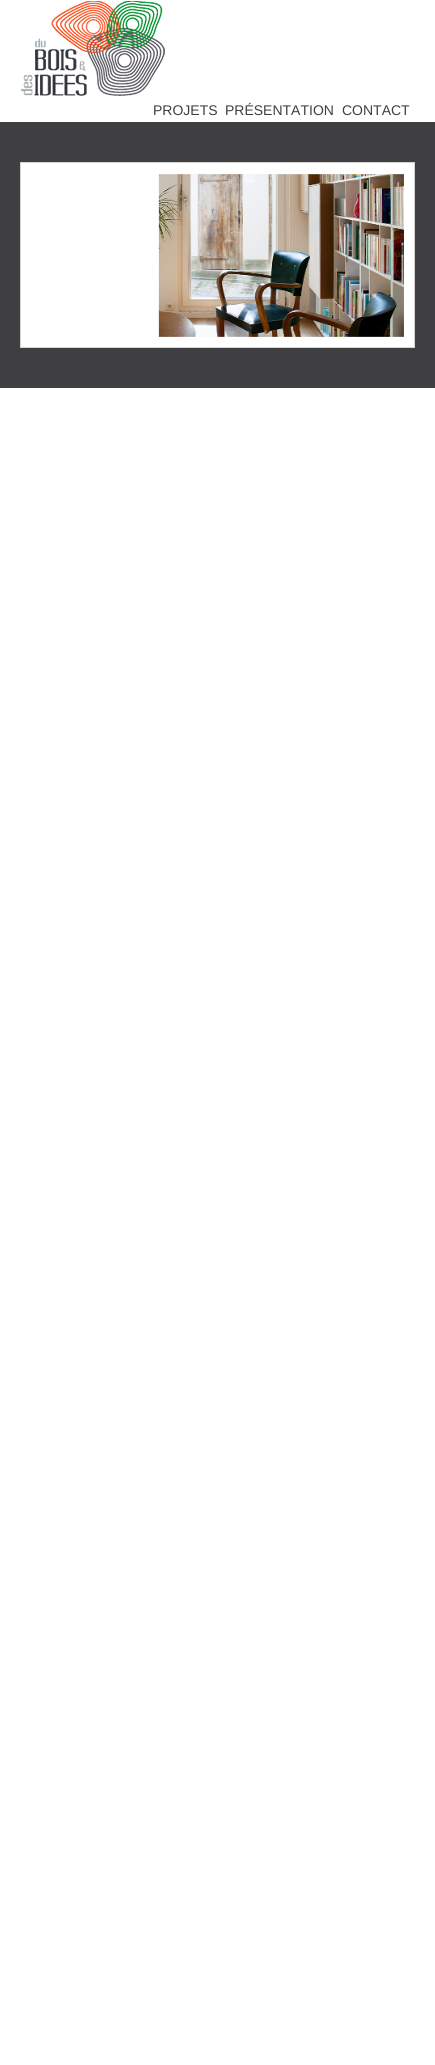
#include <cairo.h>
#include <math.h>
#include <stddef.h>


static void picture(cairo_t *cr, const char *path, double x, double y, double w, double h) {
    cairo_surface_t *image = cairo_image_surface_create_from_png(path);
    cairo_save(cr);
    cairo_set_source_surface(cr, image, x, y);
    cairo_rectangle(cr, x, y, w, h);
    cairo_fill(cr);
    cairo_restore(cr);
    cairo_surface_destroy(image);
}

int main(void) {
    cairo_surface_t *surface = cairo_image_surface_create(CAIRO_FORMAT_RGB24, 435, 2065);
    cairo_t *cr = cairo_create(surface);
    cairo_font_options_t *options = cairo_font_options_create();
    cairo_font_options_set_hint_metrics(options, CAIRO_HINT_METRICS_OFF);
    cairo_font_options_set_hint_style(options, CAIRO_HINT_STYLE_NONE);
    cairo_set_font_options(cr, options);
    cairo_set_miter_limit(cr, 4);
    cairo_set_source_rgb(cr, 1, 1, 1);
    cairo_paint(cr);
    picture(cr, "img1.png", 21, 1, 144, 95);
    cairo_select_font_face(cr, "Liberation Sans", CAIRO_FONT_SLANT_NORMAL, CAIRO_FONT_WEIGHT_NORMAL);
    cairo_set_font_size(cr, 14);
    cairo_set_source_rgb(cr, 0.247, 0.247, 0.255);
    cairo_move_to(cr, 153, 115);
    cairo_show_text(cr, "PROJETS");
    cairo_move_to(cr, 225, 115);
    cairo_show_text(cr, "PRÉSENTATION");
    cairo_move_to(cr, 342, 115);
    cairo_show_text(cr, "CONTACT");
    cairo_rectangle(cr, 0, 122, 435, 266);
    cairo_fill(cr);
    cairo_set_source_rgb(cr, 1, 1, 1);
    cairo_rectangle(cr, 20.5, 162.5, 394, 185);
    cairo_fill_preserve(cr);
    cairo_set_source_rgb(cr, 0.831, 0.831, 0.831);
    cairo_set_line_width(cr, 1);
    cairo_stroke(cr);
    picture(cr, "img2.png", 158, 174, 246, 163);
    cairo_set_source_rgba(cr, 1, 1, 1, 0.05);
    cairo_rectangle(cr, 403, 174, 1, 163);
    cairo_fill(cr);
    cairo_surface_write_to_png(surface, "page.png");
    cairo_font_options_destroy(options);
    cairo_destroy(cr);
    cairo_surface_destroy(surface);
    return 0;
}
